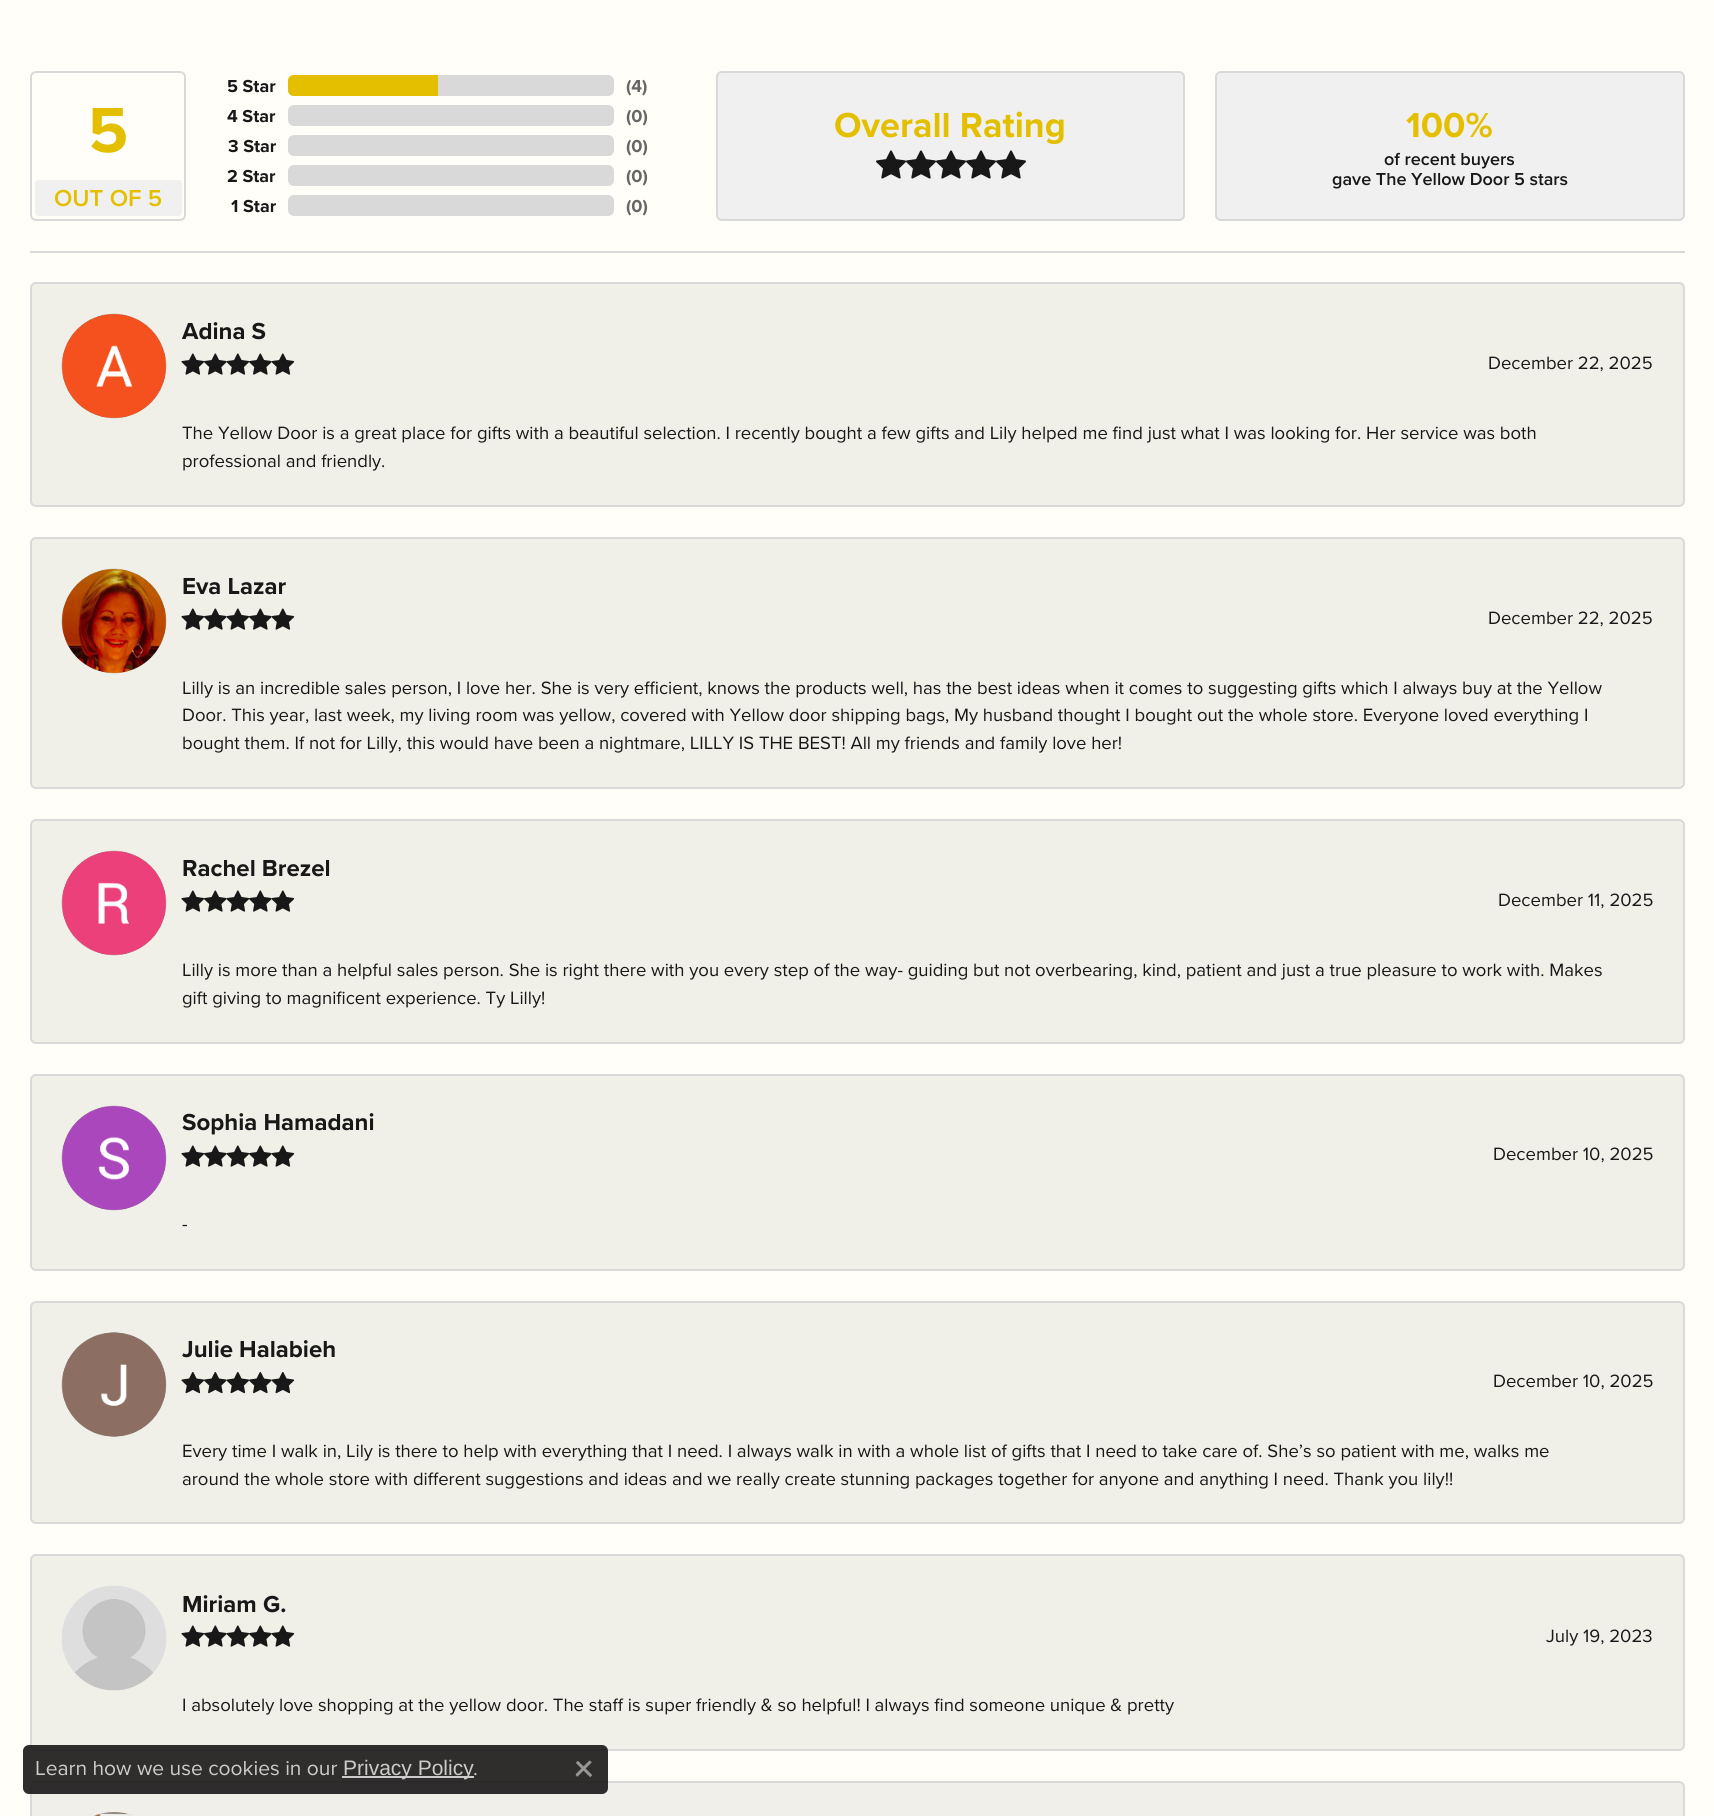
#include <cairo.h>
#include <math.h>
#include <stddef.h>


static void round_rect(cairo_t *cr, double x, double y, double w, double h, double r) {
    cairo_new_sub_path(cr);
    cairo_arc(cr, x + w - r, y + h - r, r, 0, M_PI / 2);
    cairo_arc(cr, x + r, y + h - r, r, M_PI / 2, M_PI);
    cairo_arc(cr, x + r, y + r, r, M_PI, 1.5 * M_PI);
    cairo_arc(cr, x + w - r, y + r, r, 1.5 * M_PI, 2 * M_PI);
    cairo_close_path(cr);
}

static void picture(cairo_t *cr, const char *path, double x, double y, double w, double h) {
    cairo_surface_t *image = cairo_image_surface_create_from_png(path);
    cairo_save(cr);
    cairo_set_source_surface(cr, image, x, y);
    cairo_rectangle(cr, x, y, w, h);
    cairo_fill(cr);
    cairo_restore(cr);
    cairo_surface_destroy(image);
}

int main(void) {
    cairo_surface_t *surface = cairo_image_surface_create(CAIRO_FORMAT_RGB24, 1714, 1816);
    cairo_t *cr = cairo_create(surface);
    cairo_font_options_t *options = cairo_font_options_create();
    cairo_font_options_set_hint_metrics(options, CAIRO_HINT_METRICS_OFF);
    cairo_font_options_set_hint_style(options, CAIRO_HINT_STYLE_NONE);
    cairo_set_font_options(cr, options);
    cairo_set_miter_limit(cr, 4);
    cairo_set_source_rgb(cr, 1, 0.996, 0.973);
    cairo_paint(cr);
    round_rect(cr, 31, 72, 154, 148, 5);
    cairo_set_source_rgb(cr, 0.851, 0.851, 0.851);
    cairo_stroke(cr);
    cairo_select_font_face(cr, "Proxima Nova", CAIRO_FONT_SLANT_NORMAL, CAIRO_FONT_WEIGHT_BOLD);
    cairo_set_font_size(cr, 66);
    cairo_set_source_rgb(cr, 0.894, 0.749, 0);
    cairo_move_to(cr, 88, 152);
    cairo_show_text(cr, "5");
    cairo_set_source_rgb(cr, 0.941, 0.941, 0.941);
    round_rect(cr, 35, 180, 147, 36, 3);
    cairo_fill(cr);
    cairo_select_font_face(cr, "Proxima Nova SemiBold", CAIRO_FONT_SLANT_NORMAL, CAIRO_FONT_WEIGHT_NORMAL);
    cairo_set_font_size(cr, 24);
    cairo_set_source_rgb(cr, 0.894, 0.749, 0);
    cairo_move_to(cr, 54, 206);
    cairo_show_text(cr, "OUT OF 5");
    cairo_select_font_face(cr, "Proxima Nova", CAIRO_FONT_SLANT_NORMAL, CAIRO_FONT_WEIGHT_BOLD);
    cairo_set_font_size(cr, 18);
    cairo_set_source_rgb(cr, 0.098, 0.094, 0.094);
    cairo_move_to(cr, 227, 92);
    cairo_show_text(cr, "5 Star");
    cairo_move_to(cr, 227, 122);
    cairo_show_text(cr, "4 Star");
    cairo_move_to(cr, 228, 152);
    cairo_show_text(cr, "3 Star");
    cairo_move_to(cr, 227, 182);
    cairo_show_text(cr, "2 Star");
    cairo_move_to(cr, 231, 212);
    cairo_show_text(cr, "1 Star");
    cairo_set_source_rgb(cr, 0.851, 0.851, 0.851);
    round_rect(cr, 288, 75, 326, 21, 6);
    cairo_fill(cr);
    cairo_set_source_rgb(cr, 0.894, 0.749, 0);
    cairo_new_path(cr);
    cairo_move_to(cr, 294, 75);
    cairo_line_to(cr, 438, 75);
    cairo_line_to(cr, 438, 96);
    cairo_line_to(cr, 294, 96);
    cairo_curve_to(cr, 290.5, 96, 288, 93.5, 288, 90);
    cairo_line_to(cr, 288, 81);
    cairo_curve_to(cr, 288, 77.5, 290.5, 75, 294, 75);
    cairo_close_path(cr);
    cairo_fill(cr);
    cairo_set_source_rgb(cr, 0.851, 0.851, 0.851);
    round_rect(cr, 288, 105, 326, 21, 6);
    cairo_fill(cr);
    round_rect(cr, 288, 135, 326, 21, 6);
    cairo_fill(cr);
    round_rect(cr, 288, 165, 326, 21, 6);
    cairo_fill(cr);
    round_rect(cr, 288, 195, 326, 21, 6);
    cairo_fill(cr);
    cairo_set_source_rgb(cr, 0.4, 0.4, 0.4);
    cairo_move_to(cr, 626, 92);
    cairo_show_text(cr, "(4)");
    cairo_move_to(cr, 626, 122);
    cairo_show_text(cr, "(0)");
    cairo_move_to(cr, 626, 152);
    cairo_show_text(cr, "(0)");
    cairo_move_to(cr, 626, 182);
    cairo_show_text(cr, "(0)");
    cairo_move_to(cr, 626, 212);
    cairo_show_text(cr, "(0)");
    cairo_set_source_rgb(cr, 0.941, 0.941, 0.941);
    round_rect(cr, 717, 72, 467, 148, 5);
    cairo_fill_preserve(cr);
    cairo_set_source_rgb(cr, 0.851, 0.851, 0.851);
    cairo_stroke(cr);
    cairo_set_font_size(cr, 36);
    cairo_set_source_rgb(cr, 0.894, 0.749, 0);
    cairo_move_to(cr, 834, 137);
    cairo_show_text(cr, "Overall Rating");
    picture(cr, "img1.png", 876, 150, 30, 29);
    picture(cr, "img1.png", 906, 150, 30, 29);
    picture(cr, "img1.png", 936, 150, 30, 29);
    picture(cr, "img1.png", 966, 150, 30, 29);
    picture(cr, "img1.png", 996, 150, 30, 29);
    cairo_set_source_rgb(cr, 0.941, 0.941, 0.941);
    round_rect(cr, 1216, 72, 468, 148, 5);
    cairo_fill_preserve(cr);
    cairo_set_source_rgb(cr, 0.851, 0.851, 0.851);
    cairo_stroke(cr);
    cairo_set_source_rgb(cr, 0.894, 0.749, 0);
    cairo_move_to(cr, 1406, 137);
    cairo_show_text(cr, "100%");
    cairo_select_font_face(cr, "Proxima Nova SemiBold", CAIRO_FONT_SLANT_NORMAL, CAIRO_FONT_WEIGHT_NORMAL);
    cairo_set_font_size(cr, 18);
    cairo_set_source_rgb(cr, 0.098, 0.094, 0.094);
    cairo_move_to(cr, 1384, 165);
    cairo_show_text(cr, "of recent buyers");
    cairo_move_to(cr, 1332, 185);
    cairo_show_text(cr, "gave The Yellow Door 5 stars");
    cairo_set_source_rgb(cr, 0.851, 0.851, 0.851);
    cairo_rectangle(cr, 30, 251, 1655, 2);
    cairo_fill(cr);
    cairo_set_source_rgb(cr, 0.941, 0.941, 0.914);
    round_rect(cr, 31, 283, 1653, 223, 5);
    cairo_fill_preserve(cr);
    cairo_set_source_rgb(cr, 0.851, 0.851, 0.851);
    cairo_stroke(cr);
    picture(cr, "img2.png", 61, 313, 106, 106);
    cairo_select_font_face(cr, "Proxima Nova", CAIRO_FONT_SLANT_NORMAL, CAIRO_FONT_WEIGHT_BOLD);
    cairo_set_font_size(cr, 24);
    cairo_set_source_rgb(cr, 0.098, 0.094, 0.094);
    cairo_move_to(cr, 182, 339);
    cairo_show_text(cr, "Adina S");
    picture(cr, "img3.png", 181, 353, 24, 22);
    picture(cr, "img4.png", 204, 353, 23, 22);
    picture(cr, "img5.png", 226, 353, 24, 22);
    picture(cr, "img4.png", 249, 353, 23, 22);
    picture(cr, "img5.png", 271, 353, 24, 22);
    cairo_select_font_face(cr, "Proxima Nova", CAIRO_FONT_SLANT_NORMAL, CAIRO_FONT_WEIGHT_NORMAL);
    cairo_set_font_size(cr, 18.5);
    cairo_move_to(cr, 1488, 369);
    cairo_show_text(cr, "December 22, 2025");
    cairo_move_to(cr, 182, 439);
    cairo_show_text(cr, "The Yellow Door is a great place for gifts with a beautiful selection. I recently bought a few gifts and Lily helped me find just what I was looking for. Her service was both");
    cairo_move_to(cr, 182, 467);
    cairo_show_text(cr, "professional and friendly.");
    cairo_set_source_rgb(cr, 0.941, 0.941, 0.914);
    round_rect(cr, 31, 538, 1653, 250, 5);
    cairo_fill_preserve(cr);
    cairo_set_source_rgb(cr, 0.851, 0.851, 0.851);
    cairo_stroke(cr);
    picture(cr, "img6.png", 61, 568, 106, 106);
    cairo_select_font_face(cr, "Proxima Nova", CAIRO_FONT_SLANT_NORMAL, CAIRO_FONT_WEIGHT_BOLD);
    cairo_set_font_size(cr, 24);
    cairo_set_source_rgb(cr, 0.098, 0.094, 0.094);
    cairo_move_to(cr, 182, 594);
    cairo_show_text(cr, "Eva Lazar");
    picture(cr, "img3.png", 181, 608, 24, 22);
    picture(cr, "img4.png", 204, 608, 23, 22);
    picture(cr, "img5.png", 226, 608, 24, 22);
    picture(cr, "img4.png", 249, 608, 23, 22);
    picture(cr, "img5.png", 271, 608, 24, 22);
    cairo_select_font_face(cr, "Proxima Nova", CAIRO_FONT_SLANT_NORMAL, CAIRO_FONT_WEIGHT_NORMAL);
    cairo_set_font_size(cr, 18.5);
    cairo_move_to(cr, 1488, 624);
    cairo_show_text(cr, "December 22, 2025");
    cairo_move_to(cr, 182, 694);
    cairo_show_text(cr, "Lilly is an incredible sales person, I love her. She is very efficient, knows the products well, has the best ideas when it comes to suggesting gifts which I always buy at the Yellow");
    cairo_move_to(cr, 182, 721);
    cairo_show_text(cr, "Door. This year, last week, my living room was yellow, covered with Yellow door shipping bags, My husband thought I bought out the whole store. Everyone loved everything I");
    cairo_move_to(cr, 182, 749);
    cairo_show_text(cr, "bought them. If not for Lilly, this would have been a nightmare, LILLY IS THE BEST! All my friends and family love her!");
    cairo_set_source_rgb(cr, 0.941, 0.941, 0.914);
    round_rect(cr, 31, 820, 1653, 223, 5);
    cairo_fill_preserve(cr);
    cairo_set_source_rgb(cr, 0.851, 0.851, 0.851);
    cairo_stroke(cr);
    picture(cr, "img7.png", 61, 850, 106, 106);
    cairo_select_font_face(cr, "Proxima Nova", CAIRO_FONT_SLANT_NORMAL, CAIRO_FONT_WEIGHT_BOLD);
    cairo_set_font_size(cr, 24);
    cairo_set_source_rgb(cr, 0.098, 0.094, 0.094);
    cairo_move_to(cr, 182, 876);
    cairo_show_text(cr, "Rachel Brezel");
    picture(cr, "img3.png", 181, 890, 24, 22);
    picture(cr, "img4.png", 204, 890, 23, 22);
    picture(cr, "img5.png", 226, 890, 24, 22);
    picture(cr, "img4.png", 249, 890, 23, 22);
    picture(cr, "img5.png", 271, 890, 24, 22);
    cairo_select_font_face(cr, "Proxima Nova", CAIRO_FONT_SLANT_NORMAL, CAIRO_FONT_WEIGHT_NORMAL);
    cairo_set_font_size(cr, 18.5);
    cairo_move_to(cr, 1498, 906);
    cairo_show_text(cr, "December 11, 2025");
    cairo_move_to(cr, 182, 976);
    cairo_show_text(cr, "Lilly is more than a helpful sales person. She is right there with you every step of the way- guiding but not overbearing, kind, patient and just a true pleasure to work with. Makes");
    cairo_move_to(cr, 182, 1004);
    cairo_show_text(cr, "gift giving to magnificent experience. Ty Lilly!");
    cairo_set_source_rgb(cr, 0.941, 0.941, 0.914);
    round_rect(cr, 31, 1075, 1653, 195, 5);
    cairo_fill_preserve(cr);
    cairo_set_source_rgb(cr, 0.851, 0.851, 0.851);
    cairo_stroke(cr);
    picture(cr, "img8.png", 61, 1105, 106, 106);
    cairo_select_font_face(cr, "Proxima Nova", CAIRO_FONT_SLANT_NORMAL, CAIRO_FONT_WEIGHT_BOLD);
    cairo_set_font_size(cr, 24);
    cairo_set_source_rgb(cr, 0.098, 0.094, 0.094);
    cairo_move_to(cr, 182, 1130);
    cairo_show_text(cr, "Sophia Hamadani");
    picture(cr, "img3.png", 181, 1145, 24, 22);
    picture(cr, "img4.png", 204, 1145, 23, 22);
    picture(cr, "img5.png", 226, 1145, 24, 22);
    picture(cr, "img4.png", 249, 1145, 23, 22);
    picture(cr, "img5.png", 271, 1145, 24, 22);
    cairo_select_font_face(cr, "Proxima Nova", CAIRO_FONT_SLANT_NORMAL, CAIRO_FONT_WEIGHT_NORMAL);
    cairo_set_font_size(cr, 18.5);
    cairo_move_to(cr, 1493, 1160);
    cairo_show_text(cr, "December 10, 2025");
    cairo_move_to(cr, 182, 1230);
    cairo_show_text(cr, "-");
    cairo_set_source_rgb(cr, 0.941, 0.941, 0.914);
    round_rect(cr, 31, 1302, 1653, 221, 5);
    cairo_fill_preserve(cr);
    cairo_set_source_rgb(cr, 0.851, 0.851, 0.851);
    cairo_stroke(cr);
    picture(cr, "img9.png", 61, 1332, 106, 105);
    cairo_select_font_face(cr, "Proxima Nova", CAIRO_FONT_SLANT_NORMAL, CAIRO_FONT_WEIGHT_BOLD);
    cairo_set_font_size(cr, 24);
    cairo_set_source_rgb(cr, 0.098, 0.094, 0.094);
    cairo_move_to(cr, 182, 1357);
    cairo_show_text(cr, "Julie Halabieh");
    picture(cr, "img10.png", 181, 1372, 24, 22);
    picture(cr, "img11.png", 204, 1372, 23, 22);
    picture(cr, "img12.png", 226, 1372, 24, 22);
    picture(cr, "img11.png", 249, 1372, 23, 22);
    picture(cr, "img12.png", 271, 1372, 24, 22);
    cairo_select_font_face(cr, "Proxima Nova", CAIRO_FONT_SLANT_NORMAL, CAIRO_FONT_WEIGHT_NORMAL);
    cairo_set_font_size(cr, 18.5);
    cairo_move_to(cr, 1493, 1387);
    cairo_show_text(cr, "December 10, 2025");
    cairo_move_to(cr, 182, 1457);
    cairo_show_text(cr, "Every time I walk in, Lily is there to help with everything that I need. I always walk in with a whole list of gifts that I need to take care of. She’s so patient with me, walks me");
    cairo_move_to(cr, 182, 1485);
    cairo_show_text(cr, "around the whole store with different suggestions and ideas and we really create stunning packages together for anyone and anything I need. Thank you lily!!");
    cairo_set_source_rgb(cr, 0.941, 0.941, 0.914);
    round_rect(cr, 31, 1555, 1653, 195, 5);
    cairo_fill_preserve(cr);
    cairo_set_source_rgb(cr, 0.851, 0.851, 0.851);
    cairo_stroke(cr);
    picture(cr, "img13.png", 61, 1585, 106, 106);
    cairo_select_font_face(cr, "Proxima Nova", CAIRO_FONT_SLANT_NORMAL, CAIRO_FONT_WEIGHT_BOLD);
    cairo_set_font_size(cr, 24);
    cairo_set_source_rgb(cr, 0.098, 0.094, 0.094);
    cairo_move_to(cr, 182, 1612);
    cairo_show_text(cr, "Miriam G.");
    picture(cr, "img3.png", 181, 1625, 24, 22);
    picture(cr, "img4.png", 204, 1625, 23, 22);
    picture(cr, "img5.png", 226, 1625, 24, 22);
    picture(cr, "img4.png", 249, 1625, 23, 22);
    picture(cr, "img5.png", 271, 1625, 24, 22);
    cairo_select_font_face(cr, "Proxima Nova", CAIRO_FONT_SLANT_NORMAL, CAIRO_FONT_WEIGHT_NORMAL);
    cairo_set_font_size(cr, 18.5);
    cairo_move_to(cr, 1546, 1642);
    cairo_show_text(cr, "July 19, 2023");
    cairo_move_to(cr, 182, 1711);
    cairo_show_text(cr, "I absolutely love shopping at the yellow door. The staff is super friendly & so helpful! I always find someone unique & pretty");
    cairo_set_source_rgb(cr, 0.941, 0.937, 0.914);
    round_rect(cr, 31, 1782, 1653, 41, 5);
    cairo_fill_preserve(cr);
    cairo_set_source_rgb(cr, 0.851, 0.851, 0.851);
    cairo_stroke(cr);
    picture(cr, "img14.png", 94, 1812, 38, 4);
    cairo_set_source_rgba(cr, 0.098, 0.094, 0.094, 0.9);
    round_rect(cr, 23, 1745, 585, 49, 6);
    cairo_fill(cr);
    cairo_set_font_size(cr, 21);
    cairo_set_source_rgb(cr, 0.8, 0.8, 0.8);
    cairo_move_to(cr, 35, 1775);
    cairo_show_text(cr, "Learn how we use cookies in our");
    cairo_rectangle(cr, 342, 1776, 132, 2);
    cairo_fill(cr);
    cairo_select_font_face(cr, "Liberation Sans", CAIRO_FONT_SLANT_NORMAL, CAIRO_FONT_WEIGHT_NORMAL);
    cairo_move_to(cr, 343, 1775);
    cairo_show_text(cr, "Privacy Policy");
    cairo_select_font_face(cr, "Proxima Nova", CAIRO_FONT_SLANT_NORMAL, CAIRO_FONT_WEIGHT_NORMAL);
    cairo_move_to(cr, 473, 1775);
    cairo_show_text(cr, ".");
    picture(cr, "img15.png", 575, 1760, 17, 17);
    cairo_surface_write_to_png(surface, "page.png");
    cairo_font_options_destroy(options);
    cairo_destroy(cr);
    cairo_surface_destroy(surface);
    return 0;
}
